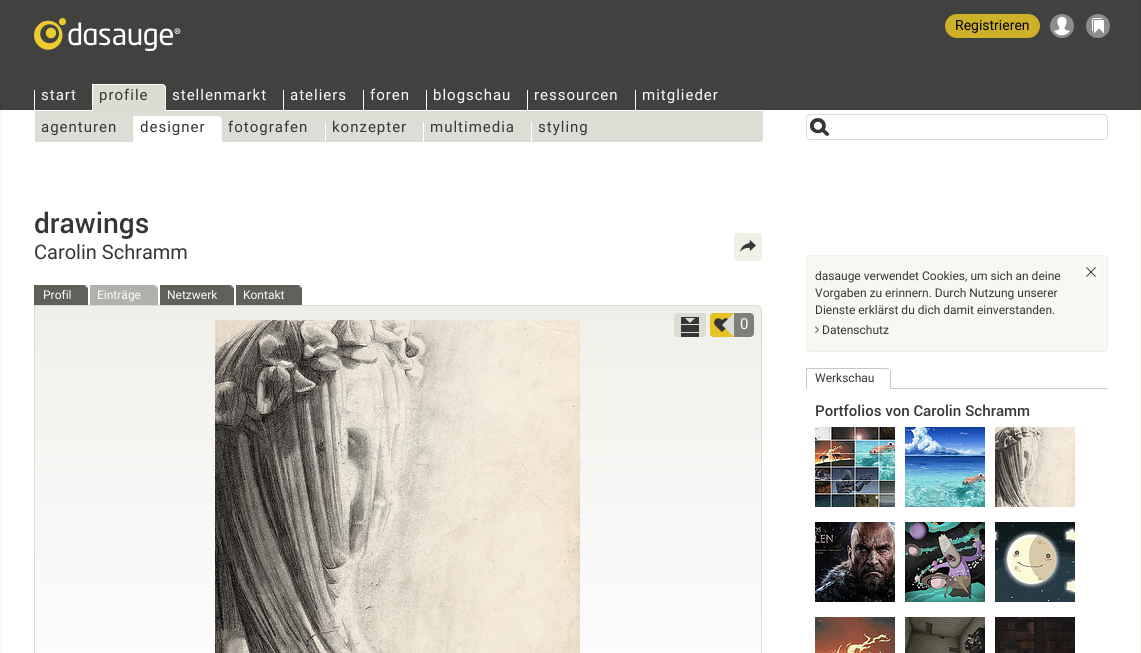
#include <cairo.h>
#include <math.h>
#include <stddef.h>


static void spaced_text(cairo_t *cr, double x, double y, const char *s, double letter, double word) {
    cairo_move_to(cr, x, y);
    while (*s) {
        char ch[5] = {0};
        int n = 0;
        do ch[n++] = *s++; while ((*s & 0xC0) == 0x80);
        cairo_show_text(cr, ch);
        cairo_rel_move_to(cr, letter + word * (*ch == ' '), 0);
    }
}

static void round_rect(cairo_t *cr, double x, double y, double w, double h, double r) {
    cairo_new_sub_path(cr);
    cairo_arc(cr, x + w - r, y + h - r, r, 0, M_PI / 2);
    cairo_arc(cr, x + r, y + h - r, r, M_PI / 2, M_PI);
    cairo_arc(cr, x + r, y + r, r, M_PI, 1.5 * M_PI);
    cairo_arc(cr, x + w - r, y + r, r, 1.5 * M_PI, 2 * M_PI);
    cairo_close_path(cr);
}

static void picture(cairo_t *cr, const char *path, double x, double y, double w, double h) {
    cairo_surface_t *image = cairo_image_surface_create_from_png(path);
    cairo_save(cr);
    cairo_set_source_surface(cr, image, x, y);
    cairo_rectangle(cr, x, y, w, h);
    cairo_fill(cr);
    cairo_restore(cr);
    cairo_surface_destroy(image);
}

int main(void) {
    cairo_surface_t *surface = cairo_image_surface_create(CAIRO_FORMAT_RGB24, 1141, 653);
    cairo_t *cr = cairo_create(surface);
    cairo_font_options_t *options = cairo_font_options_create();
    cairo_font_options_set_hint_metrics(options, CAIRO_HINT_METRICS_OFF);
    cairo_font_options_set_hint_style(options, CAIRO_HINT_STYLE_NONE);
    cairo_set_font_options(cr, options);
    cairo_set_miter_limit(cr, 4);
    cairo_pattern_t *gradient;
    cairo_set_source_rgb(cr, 0.969, 0.969, 0.949);
    cairo_paint(cr);
    cairo_set_source_rgb(cr, 0.247, 0.247, 0.239);
    cairo_rectangle(cr, 0, 0, 1141, 110);
    cairo_fill(cr);
    cairo_set_source_rgb(cr, 1, 1, 1);
    cairo_rectangle(cr, 2, 110, 1138, 543);
    cairo_fill(cr);
    cairo_set_source_rgb(cr, 0.255, 0.255, 0.251);
    cairo_rectangle(cr, 2, 0, 1138, 110);
    cairo_fill(cr);
    picture(cr, "img1.png", 34, 18, 147, 33);
    cairo_set_source_rgb(cr, 0.804, 0.694, 0.161);
    round_rect(cr, 945, 14, 95, 24, 12);
    cairo_fill(cr);
    cairo_select_font_face(cr, "Roboto", CAIRO_FONT_SLANT_NORMAL, CAIRO_FONT_WEIGHT_NORMAL);
    cairo_set_font_size(cr, 14);
    cairo_set_source_rgb(cr, 0, 0, 0);
    cairo_move_to(cr, 955, 30);
    cairo_show_text(cr, "Registrieren");
    picture(cr, "img2.png", 1050, 14, 24, 24);
    picture(cr, "img3.png", 1086, 14, 24, 24);
    picture(cr, "img4.png", 809, 118, 20, 18);
    round_rect(cr, 806.5, 114.5, 301, 25, 3.5);
    cairo_set_source_rgb(cr, 0.863, 0.863, 0.824);
    cairo_set_line_width(cr, 1);
    cairo_stroke(cr);
    cairo_set_source_rgb(cr, 0.867, 0.867, 0.839);
    cairo_new_path(cr);
    cairo_move_to(cr, 34.5, 110.5);
    cairo_line_to(cr, 763.5, 110.5);
    cairo_line_to(cr, 763.5, 139);
    cairo_curve_to(cr, 763.5, 141, 762, 142.5, 760, 142.5);
    cairo_line_to(cr, 34.5, 142.5);
    cairo_close_path(cr);
    cairo_fill_preserve(cr);
    cairo_set_source_rgb(cr, 1, 1, 1);
    cairo_stroke(cr);
    cairo_set_source_rgb(cr, 0.863, 0.863, 0.824);
    cairo_new_path(cr);
    cairo_move_to(cr, 92, 84);
    cairo_line_to(cr, 162, 84);
    cairo_curve_to(cr, 164, 84, 166, 86, 166, 88);
    cairo_line_to(cr, 166, 111);
    cairo_line_to(cr, 92, 111);
    cairo_close_path(cr);
    cairo_fill(cr);
    cairo_set_source_rgb(cr, 1, 1, 1);
    cairo_set_fill_rule(cr, CAIRO_FILL_RULE_EVEN_ODD);
    cairo_new_path(cr);
    cairo_move_to(cr, 92, 84);
    cairo_line_to(cr, 162, 84);
    cairo_curve_to(cr, 164, 84, 166, 86, 166, 88);
    cairo_line_to(cr, 166, 111);
    cairo_line_to(cr, 92, 111);
    cairo_close_path(cr);
    cairo_move_to(cr, 93, 85);
    cairo_line_to(cr, 162, 85);
    cairo_curve_to(cr, 164, 85, 165, 86, 165, 88);
    cairo_line_to(cr, 165, 111);
    cairo_line_to(cr, 93, 111);
    cairo_close_path(cr);
    cairo_fill(cr);
    cairo_set_font_size(cr, 15);
    cairo_set_source_rgb(cr, 0.212, 0.212, 0.204);
    spaced_text(cr, 99, 100, "profile", 1, 0);
    spaced_text(cr, 41, 132, "agenturen", 1, 0);
    cairo_set_source_rgb(cr, 1, 1, 1);
    cairo_new_path(cr);
    cairo_move_to(cr, 133, 116);
    cairo_line_to(cr, 218, 116);
    cairo_curve_to(cr, 220, 116, 222, 118, 222, 120);
    cairo_line_to(cr, 222, 142);
    cairo_line_to(cr, 133, 142);
    cairo_close_path(cr);
    cairo_fill(cr);
    cairo_set_source_rgb(cr, 0.988, 0.988, 0.98);
    cairo_new_path(cr);
    cairo_move_to(cr, 133, 116);
    cairo_line_to(cr, 218, 116);
    cairo_curve_to(cr, 220, 116, 222, 118, 222, 120);
    cairo_line_to(cr, 222, 142);
    cairo_line_to(cr, 133, 142);
    cairo_close_path(cr);
    cairo_move_to(cr, 134, 117);
    cairo_line_to(cr, 218, 117);
    cairo_curve_to(cr, 220, 117, 221, 118, 221, 120);
    cairo_line_to(cr, 221, 142);
    cairo_line_to(cr, 134, 142);
    cairo_close_path(cr);
    cairo_fill(cr);
    cairo_set_source_rgb(cr, 0.212, 0.212, 0.204);
    spaced_text(cr, 140, 132, "designer", 1, 0);
    spaced_text(cr, 228, 132, "fotografen", 1, 0);
    cairo_set_source_rgb(cr, 1, 1, 1);
    cairo_rectangle(cr, 325, 122, 1, 20);
    cairo_fill(cr);
    cairo_set_source_rgb(cr, 0.212, 0.212, 0.204);
    spaced_text(cr, 332, 132, "konzepter", 1, 0);
    cairo_set_source_rgb(cr, 1, 1, 1);
    cairo_rectangle(cr, 423, 122, 1, 20);
    cairo_fill(cr);
    cairo_set_source_rgb(cr, 0.212, 0.212, 0.204);
    spaced_text(cr, 430, 132, "multimedia", 1, 0);
    cairo_set_source_rgb(cr, 1, 1, 1);
    cairo_rectangle(cr, 531, 122, 1, 20);
    cairo_fill(cr);
    cairo_set_source_rgb(cr, 0.212, 0.212, 0.204);
    spaced_text(cr, 538, 132, "styling", 1, 0);
    cairo_set_source_rgb(cr, 1, 1, 1);
    cairo_rectangle(cr, 34, 90, 1, 20);
    cairo_fill(cr);
    cairo_set_source_rgb(cr, 0.988, 0.988, 0.98);
    spaced_text(cr, 41, 100, "start", 1, 0);
    spaced_text(cr, 172, 100, "stellenmarkt", 1, 0);
    cairo_set_source_rgb(cr, 1, 1, 1);
    cairo_rectangle(cr, 283, 90, 1, 20);
    cairo_fill(cr);
    cairo_set_source_rgb(cr, 0.988, 0.988, 0.98);
    spaced_text(cr, 290, 100, "ateliers", 1, 0);
    cairo_set_source_rgb(cr, 1, 1, 1);
    cairo_rectangle(cr, 363, 90, 1, 20);
    cairo_fill(cr);
    cairo_set_source_rgb(cr, 0.988, 0.988, 0.98);
    spaced_text(cr, 370, 100, "foren", 1, 0);
    cairo_set_source_rgb(cr, 1, 1, 1);
    cairo_rectangle(cr, 426, 90, 1, 20);
    cairo_fill(cr);
    cairo_set_source_rgb(cr, 0.988, 0.988, 0.98);
    spaced_text(cr, 433, 100, "blogschau", 1, 0);
    cairo_set_source_rgb(cr, 1, 1, 1);
    cairo_rectangle(cr, 527, 90, 1, 20);
    cairo_fill(cr);
    cairo_set_source_rgb(cr, 0.988, 0.988, 0.98);
    spaced_text(cr, 534, 100, "ressourcen", 1, 0);
    cairo_set_source_rgb(cr, 1, 1, 1);
    cairo_rectangle(cr, 635, 90, 1, 20);
    cairo_fill(cr);
    cairo_set_source_rgb(cr, 0.988, 0.988, 0.98);
    spaced_text(cr, 642, 100, "mitglieder", 1, 0);
    cairo_select_font_face(cr, "Roboto Medium", CAIRO_FONT_SLANT_NORMAL, CAIRO_FONT_WEIGHT_NORMAL);
    cairo_set_font_size(cr, 28);
    cairo_set_source_rgb(cr, 0.212, 0.212, 0.204);
    cairo_move_to(cr, 34, 233);
    cairo_show_text(cr, "drawings");
    cairo_select_font_face(cr, "Roboto", CAIRO_FONT_SLANT_NORMAL, CAIRO_FONT_WEIGHT_NORMAL);
    cairo_set_font_size(cr, 20);
    cairo_move_to(cr, 34, 259);
    cairo_show_text(cr, "Carolin Schramm");
    cairo_set_source_rgb(cr, 0.941, 0.941, 0.902);
    round_rect(cr, 734, 233, 28, 28, 3);
    cairo_fill(cr);
    picture(cr, "img5.png", 740, 239, 16, 13);
    cairo_set_source_rgb(cr, 0.376, 0.376, 0.345);
    cairo_new_path(cr);
    cairo_move_to(cr, 35, 286);
    cairo_line_to(cr, 84, 286);
    cairo_curve_to(cr, 85.5, 286, 87, 287.5, 87, 289);
    cairo_line_to(cr, 87, 305);
    cairo_line_to(cr, 35, 305);
    cairo_close_path(cr);
    cairo_fill(cr);
    cairo_new_path(cr);
    cairo_move_to(cr, 34, 285);
    cairo_line_to(cr, 84, 285);
    cairo_curve_to(cr, 86, 285, 88, 287, 88, 289);
    cairo_line_to(cr, 88, 305);
    cairo_line_to(cr, 34, 305);
    cairo_close_path(cr);
    cairo_move_to(cr, 35, 286);
    cairo_line_to(cr, 84, 286);
    cairo_curve_to(cr, 86, 286, 87, 287, 87, 289);
    cairo_line_to(cr, 87, 305);
    cairo_line_to(cr, 35, 305);
    cairo_close_path(cr);
    cairo_fill(cr);
    cairo_set_font_size(cr, 12);
    cairo_set_source_rgb(cr, 0.988, 0.988, 0.98);
    cairo_move_to(cr, 43, 299);
    cairo_show_text(cr, "Profil");
    cairo_set_source_rgb(cr, 0.69, 0.69, 0.675);
    cairo_new_path(cr);
    cairo_move_to(cr, 91, 286);
    cairo_line_to(cr, 154, 286);
    cairo_curve_to(cr, 155.5, 286, 157, 287.5, 157, 289);
    cairo_line_to(cr, 157, 305);
    cairo_line_to(cr, 91, 305);
    cairo_close_path(cr);
    cairo_fill(cr);
    cairo_new_path(cr);
    cairo_move_to(cr, 90, 285);
    cairo_line_to(cr, 154, 285);
    cairo_curve_to(cr, 156, 285, 158, 287, 158, 289);
    cairo_line_to(cr, 158, 305);
    cairo_line_to(cr, 90, 305);
    cairo_close_path(cr);
    cairo_move_to(cr, 91, 286);
    cairo_line_to(cr, 154, 286);
    cairo_curve_to(cr, 156, 286, 157, 287, 157, 289);
    cairo_line_to(cr, 157, 305);
    cairo_line_to(cr, 91, 305);
    cairo_close_path(cr);
    cairo_fill(cr);
    cairo_set_source_rgb(cr, 0.988, 0.988, 0.98);
    cairo_move_to(cr, 97, 299);
    cairo_show_text(cr, "Einträge");
    cairo_set_source_rgb(cr, 0.376, 0.376, 0.345);
    cairo_new_path(cr);
    cairo_move_to(cr, 161, 286);
    cairo_line_to(cr, 230, 286);
    cairo_curve_to(cr, 231.5, 286, 233, 287.5, 233, 289);
    cairo_line_to(cr, 233, 305);
    cairo_line_to(cr, 161, 305);
    cairo_close_path(cr);
    cairo_fill(cr);
    cairo_new_path(cr);
    cairo_move_to(cr, 160, 285);
    cairo_line_to(cr, 230, 285);
    cairo_curve_to(cr, 232, 285, 234, 287, 234, 289);
    cairo_line_to(cr, 234, 305);
    cairo_line_to(cr, 160, 305);
    cairo_close_path(cr);
    cairo_move_to(cr, 161, 286);
    cairo_line_to(cr, 230, 286);
    cairo_curve_to(cr, 232, 286, 233, 287, 233, 289);
    cairo_line_to(cr, 233, 305);
    cairo_line_to(cr, 161, 305);
    cairo_close_path(cr);
    cairo_fill(cr);
    cairo_set_source_rgb(cr, 0.988, 0.988, 0.98);
    cairo_move_to(cr, 167, 299);
    cairo_show_text(cr, "Netzwerk");
    cairo_set_source_rgb(cr, 0.376, 0.376, 0.345);
    cairo_new_path(cr);
    cairo_move_to(cr, 237, 286);
    cairo_line_to(cr, 298, 286);
    cairo_curve_to(cr, 299.5, 286, 301, 287.5, 301, 289);
    cairo_line_to(cr, 301, 305);
    cairo_line_to(cr, 237, 305);
    cairo_close_path(cr);
    cairo_fill(cr);
    cairo_new_path(cr);
    cairo_move_to(cr, 236, 285);
    cairo_line_to(cr, 298, 285);
    cairo_curve_to(cr, 300, 285, 302, 287, 302, 289);
    cairo_line_to(cr, 302, 305);
    cairo_line_to(cr, 236, 305);
    cairo_close_path(cr);
    cairo_move_to(cr, 237, 286);
    cairo_line_to(cr, 298, 286);
    cairo_curve_to(cr, 300, 286, 301, 287, 301, 289);
    cairo_line_to(cr, 301, 305);
    cairo_line_to(cr, 237, 305);
    cairo_close_path(cr);
    cairo_fill(cr);
    cairo_set_source_rgb(cr, 0.988, 0.988, 0.98);
    cairo_move_to(cr, 243, 299);
    cairo_show_text(cr, "Kontakt");
    cairo_save(cr);
    cairo_set_fill_rule(cr, CAIRO_FILL_RULE_WINDING);
    cairo_new_path(cr);
    cairo_move_to(cr, 34, 305);
    cairo_line_to(cr, 756, 305);
    cairo_curve_to(cr, 759.5, 305, 762, 307.5, 762, 311);
    cairo_line_to(cr, 762, 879);
    cairo_curve_to(cr, 762, 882.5, 759.5, 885, 756, 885);
    cairo_line_to(cr, 40, 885);
    cairo_curve_to(cr, 36.5, 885, 34, 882.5, 34, 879);
    cairo_close_path(cr);
    cairo_clip(cr);
    gradient = cairo_pattern_create_linear(398, 306, 398, 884);
    cairo_pattern_add_color_stop_rgba(gradient, 0, 0.941, 0.941, 0.918, 1);
    cairo_pattern_add_color_stop_rgba(gradient, 0.61, 0.988, 0.988, 0.996, 1);
    cairo_pattern_add_color_stop_rgba(gradient, 0.62, 0.945, 0.945, 0.937, 1);
    cairo_pattern_add_color_stop_rgba(gradient, 1, 0.941, 0.941, 0.918, 1);
    cairo_set_source(cr, gradient);
    cairo_pattern_destroy(gradient);
    cairo_rectangle(cr, 35, 306, 727, 347);
    cairo_fill(cr);
    cairo_restore(cr);
    cairo_new_path(cr);
    cairo_move_to(cr, 34.5, 305.5);
    cairo_line_to(cr, 756, 305.5);
    cairo_curve_to(cr, 759, 305.5, 761.5, 308, 761.5, 311);
    cairo_line_to(cr, 761.5, 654);
    cairo_curve_to(cr, 761.5, 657, 759, 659.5, 756, 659.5);
    cairo_line_to(cr, 40, 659.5);
    cairo_curve_to(cr, 37, 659.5, 34.5, 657, 34.5, 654);
    cairo_close_path(cr);
    cairo_set_source_rgb(cr, 0.863, 0.863, 0.824);
    cairo_stroke(cr);
    picture(cr, "img6.png", 215, 320, 365, 333);
    round_rect(cr, 674, 313, 32, 24, 3);
    cairo_fill(cr);
    picture(cr, "img7.png", 681, 317, 18, 20);
    cairo_set_source_rgb(cr, 0.502, 0.502, 0.471);
    round_rect(cr, 710, 313, 44, 24, 4);
    cairo_fill(cr);
    cairo_set_source_rgb(cr, 0.898, 0.765, 0.141);
    cairo_new_path(cr);
    cairo_move_to(cr, 714, 313);
    cairo_line_to(cr, 734, 313);
    cairo_line_to(cr, 734, 337);
    cairo_line_to(cr, 714, 337);
    cairo_curve_to(cr, 712, 337, 710, 335, 710, 333);
    cairo_line_to(cr, 710, 317);
    cairo_curve_to(cr, 710, 315, 712, 313, 714, 313);
    cairo_close_path(cr);
    cairo_fill(cr);
    picture(cr, "img8.png", 714, 318, 14, 14);
    cairo_set_source_rgb(cr, 0.863, 0.863, 0.824);
    cairo_set_fill_rule(cr, CAIRO_FILL_RULE_WINDING);
    cairo_new_path(cr);
    cairo_move_to(cr, 734, 313);
    cairo_line_to(cr, 722, 325);
    cairo_line_to(cr, 734, 337);
    cairo_close_path(cr);
    cairo_fill(cr);
    cairo_set_font_size(cr, 15);
    cairo_set_source_rgb(cr, 0.988, 0.988, 0.98);
    cairo_move_to(cr, 740, 329);
    cairo_show_text(cr, "0");
    cairo_set_source_rgb(cr, 0.969, 0.969, 0.949);
    round_rect(cr, 806.5, 255.5, 301, 96, 3.5);
    cairo_fill_preserve(cr);
    cairo_set_source_rgb(cr, 0.941, 0.941, 0.902);
    cairo_stroke(cr);
    cairo_set_font_size(cr, 12);
    cairo_set_source_rgb(cr, 0.212, 0.212, 0.204);
    cairo_move_to(cr, 815, 280);
    cairo_show_text(cr, "dasauge verwendet Cookies, um sich an deine");
    cairo_move_to(cr, 815, 297);
    cairo_show_text(cr, "Vorgaben zu erinnern. Durch Nutzung unserer");
    cairo_move_to(cr, 815, 314);
    cairo_show_text(cr, "Dienste erklärst du dich damit einverstanden.");
    picture(cr, "img9.png", 1082, 263, 18, 18);
    picture(cr, "img10.png", 815, 326, 4, 8);
    cairo_move_to(cr, 822, 334);
    cairo_show_text(cr, "Datenschutz");
    cairo_set_source_rgb(cr, 0.784, 0.784, 0.745);
    cairo_new_path(cr);
    cairo_move_to(cr, 806, 388);
    cairo_line_to(cr, 807, 389);
    cairo_line_to(cr, 1107, 389);
    cairo_line_to(cr, 1108, 388);
    cairo_close_path(cr);
    cairo_fill(cr);
    cairo_set_source_rgb(cr, 1, 1, 1);
    cairo_new_path(cr);
    cairo_move_to(cr, 807, 369);
    cairo_line_to(cr, 887, 369);
    cairo_curve_to(cr, 888.5, 369, 890, 370.5, 890, 372);
    cairo_line_to(cr, 890, 389);
    cairo_line_to(cr, 807, 389);
    cairo_close_path(cr);
    cairo_fill(cr);
    cairo_set_source_rgb(cr, 0.784, 0.784, 0.745);
    cairo_set_fill_rule(cr, CAIRO_FILL_RULE_EVEN_ODD);
    cairo_new_path(cr);
    cairo_move_to(cr, 806, 368);
    cairo_line_to(cr, 887, 368);
    cairo_curve_to(cr, 889, 368, 891, 370, 891, 372);
    cairo_line_to(cr, 891, 389);
    cairo_line_to(cr, 806, 389);
    cairo_close_path(cr);
    cairo_move_to(cr, 807, 369);
    cairo_line_to(cr, 887, 369);
    cairo_curve_to(cr, 889, 369, 890, 370, 890, 372);
    cairo_line_to(cr, 890, 389);
    cairo_line_to(cr, 807, 389);
    cairo_close_path(cr);
    cairo_fill(cr);
    cairo_set_source_rgb(cr, 0.212, 0.212, 0.204);
    cairo_move_to(cr, 815, 382);
    cairo_show_text(cr, "Werkschau");
    cairo_select_font_face(cr, "Roboto Medium", CAIRO_FONT_SLANT_NORMAL, CAIRO_FONT_WEIGHT_NORMAL);
    cairo_set_font_size(cr, 15);
    cairo_move_to(cr, 815, 416);
    cairo_show_text(cr, "Portfolios von Carolin Schramm");
    picture(cr, "img11.png", 815, 427, 80, 80);
    picture(cr, "img12.png", 905, 427, 80, 80);
    picture(cr, "img13.png", 995, 427, 80, 80);
    picture(cr, "img14.png", 815, 522, 80, 80);
    picture(cr, "img15.png", 905, 522, 80, 80);
    picture(cr, "img16.png", 995, 522, 80, 80);
    picture(cr, "img17.png", 815, 617, 80, 36);
    picture(cr, "img18.png", 905, 617, 80, 36);
    picture(cr, "img19.png", 995, 617, 80, 36);
    cairo_surface_write_to_png(surface, "page.png");
    cairo_font_options_destroy(options);
    cairo_destroy(cr);
    cairo_surface_destroy(surface);
    return 0;
}
